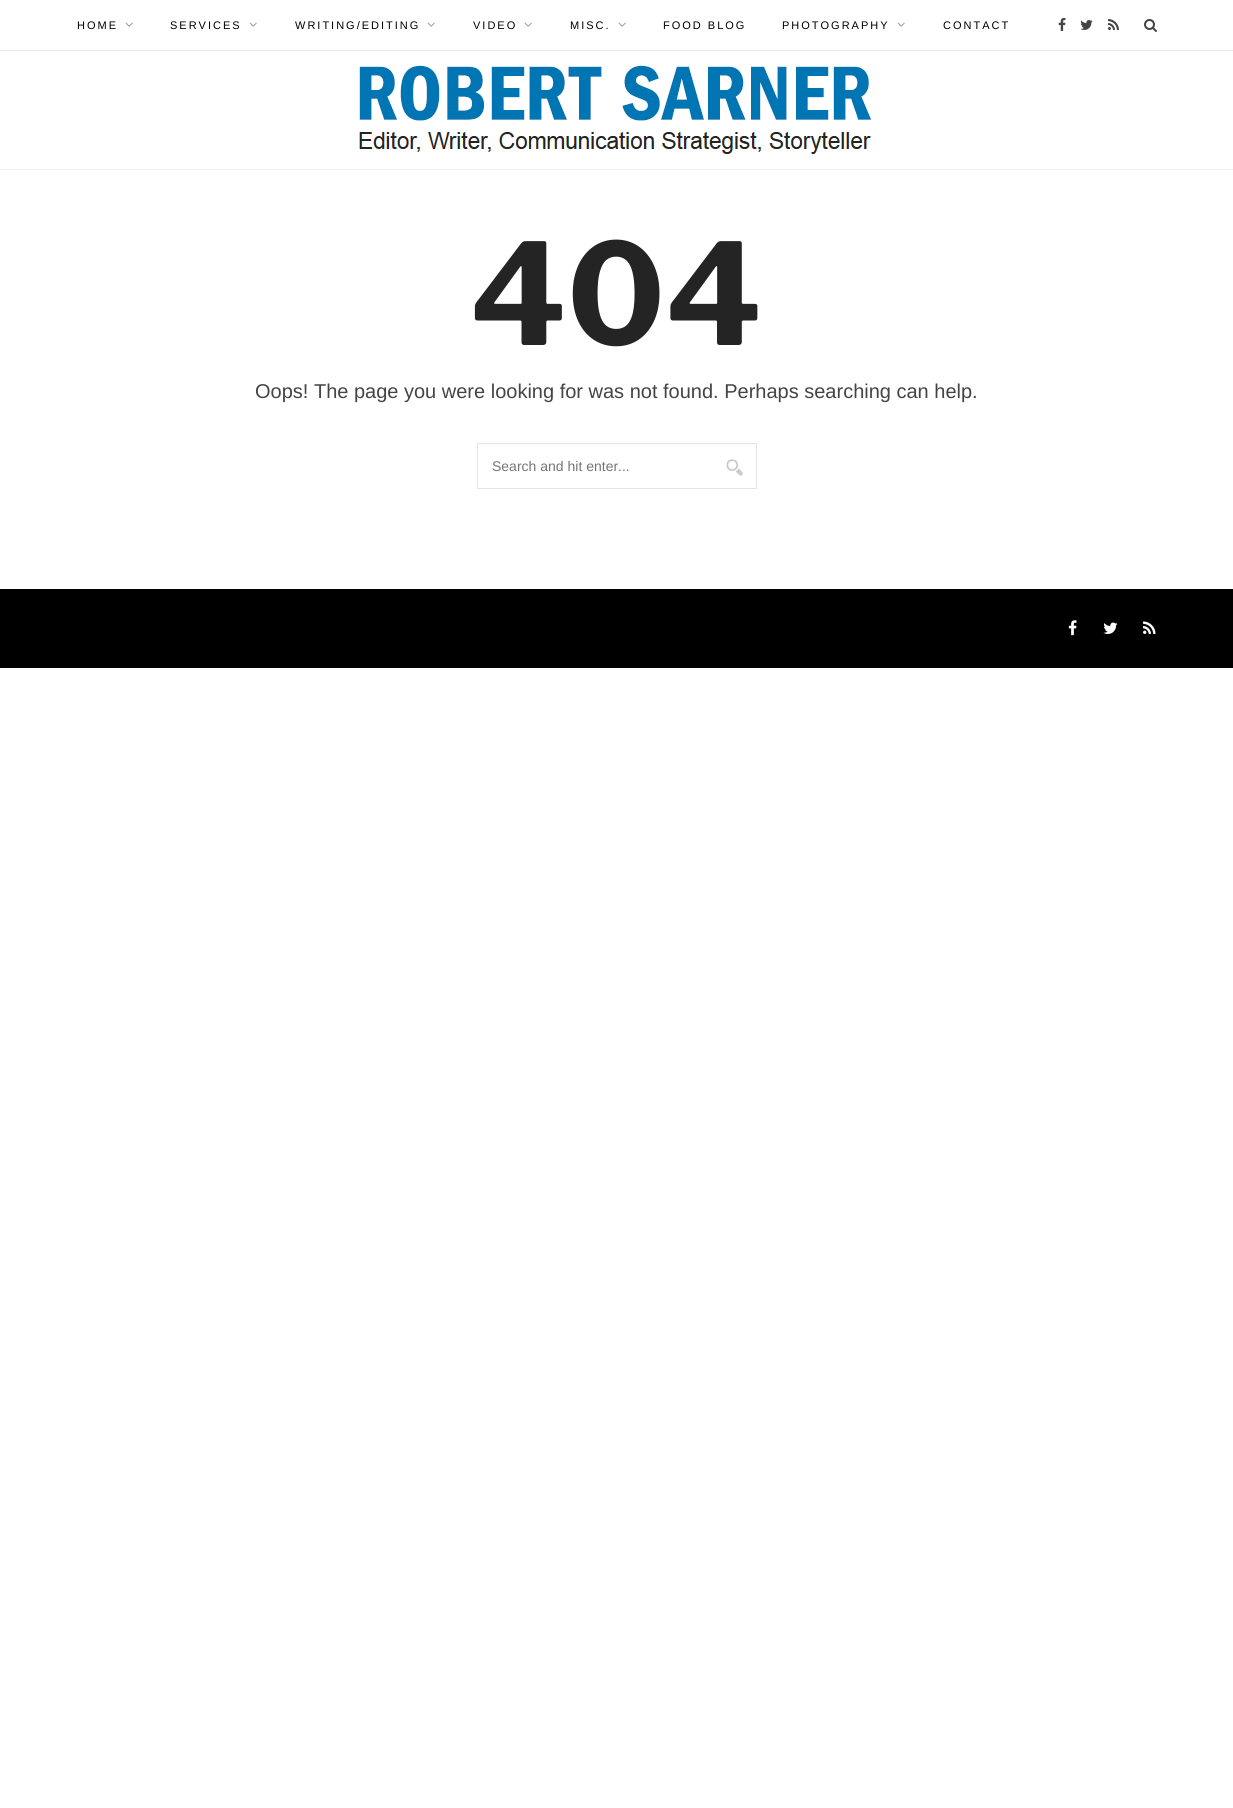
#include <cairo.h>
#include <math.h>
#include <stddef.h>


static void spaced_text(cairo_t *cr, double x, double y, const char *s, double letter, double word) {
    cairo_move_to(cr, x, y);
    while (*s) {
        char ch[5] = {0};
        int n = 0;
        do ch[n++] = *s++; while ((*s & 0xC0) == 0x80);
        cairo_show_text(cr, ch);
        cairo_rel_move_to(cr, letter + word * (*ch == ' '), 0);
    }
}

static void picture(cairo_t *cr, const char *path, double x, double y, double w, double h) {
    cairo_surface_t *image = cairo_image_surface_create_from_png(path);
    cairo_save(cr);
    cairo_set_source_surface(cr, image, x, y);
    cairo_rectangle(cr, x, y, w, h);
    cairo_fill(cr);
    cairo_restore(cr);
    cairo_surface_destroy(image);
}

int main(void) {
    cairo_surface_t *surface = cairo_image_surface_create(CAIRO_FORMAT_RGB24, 1233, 1808);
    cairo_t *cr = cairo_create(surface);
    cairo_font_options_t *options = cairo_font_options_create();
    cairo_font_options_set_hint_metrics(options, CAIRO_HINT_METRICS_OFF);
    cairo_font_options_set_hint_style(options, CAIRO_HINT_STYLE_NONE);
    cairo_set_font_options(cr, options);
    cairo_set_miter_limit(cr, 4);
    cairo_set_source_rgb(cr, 1, 1, 1);
    cairo_paint(cr);
    cairo_set_source_rgb(cr, 0.898, 0.898, 0.898);
    cairo_rectangle(cr, 0, 50, 1233, 1);
    cairo_fill(cr);
    cairo_select_font_face(cr, "Liberation Sans", CAIRO_FONT_SLANT_NORMAL, CAIRO_FONT_WEIGHT_NORMAL);
    cairo_set_font_size(cr, 11);
    cairo_set_source_rgb(cr, 0, 0, 0);
    spaced_text(cr, 77, 29, "HOME", 2, 0);
    picture(cr, "img1.png", 125, 22, 8, 5);
    spaced_text(cr, 170, 29, "SERVICES", 2, 0);
    picture(cr, "img1.png", 249, 22, 8, 5);
    spaced_text(cr, 295, 29, "WRITING/EDITING", 2, 0);
    picture(cr, "img1.png", 427, 22, 8, 5);
    spaced_text(cr, 473, 29, "VIDEO", 2, 0);
    picture(cr, "img1.png", 524, 22, 8, 5);
    spaced_text(cr, 570, 29, "MISC.", 2, 0);
    picture(cr, "img1.png", 618, 22, 8, 5);
    spaced_text(cr, 663, 29, "FOOD BLOG", 2, 0);
    spaced_text(cr, 782, 29, "PHOTOGRAPHY", 2, 0);
    picture(cr, "img1.png", 897, 22, 8, 5);
    spaced_text(cr, 943, 29, "CONTACT", 2, 0);
    picture(cr, "img2.png", 1058, 18, 8, 13);
    picture(cr, "img3.png", 1080, 20, 13, 10);
    picture(cr, "img4.png", 1108, 19, 11, 11);
    picture(cr, "img5.png", 1144, 19, 13, 13);
    cairo_set_source_rgb(cr, 0.933, 0.933, 0.933);
    cairo_rectangle(cr, 0, 169, 1233, 1);
    cairo_fill(cr);
    picture(cr, "img6.png", 359, 65, 512, 89);
    cairo_select_font_face(cr, "Libre Franklin", CAIRO_FONT_SLANT_NORMAL, CAIRO_FONT_WEIGHT_BOLD);
    cairo_set_font_size(cr, 140);
    cairo_set_source_rgb(cr, 0.141, 0.141, 0.141);
    cairo_move_to(cr, 470, 345);
    cairo_show_text(cr, "404");
    cairo_select_font_face(cr, "Liberation Sans", CAIRO_FONT_SLANT_NORMAL, CAIRO_FONT_WEIGHT_NORMAL);
    cairo_set_font_size(cr, 20);
    cairo_set_source_rgb(cr, 0.267, 0.267, 0.267);
    cairo_move_to(cr, 255, 398);
    cairo_show_text(cr, "Oops! The page you were looking for was not found. Perhaps searching can help.");
    picture(cr, "img7.png", 726, 459, 17, 17);
    cairo_rectangle(cr, 477.5, 443.5, 279, 45);
    cairo_set_source_rgb(cr, 0.898, 0.898, 0.898);
    cairo_set_line_width(cr, 1);
    cairo_stroke(cr);
    cairo_set_font_size(cr, 14);
    cairo_set_source_rgb(cr, 0.459, 0.459, 0.459);
    cairo_move_to(cr, 492, 471);
    cairo_show_text(cr, "Search and hit enter...");
    cairo_set_source_rgb(cr, 0, 0, 0);
    cairo_rectangle(cr, 0, 589, 1233, 79);
    cairo_fill(cr);
    picture(cr, "img8.png", 1068, 620, 9, 16);
    picture(cr, "img9.png", 1103, 622, 15, 12);
    picture(cr, "img10.png", 1143, 621, 13, 13);
    cairo_surface_write_to_png(surface, "page.png");
    cairo_font_options_destroy(options);
    cairo_destroy(cr);
    cairo_surface_destroy(surface);
    return 0;
}
